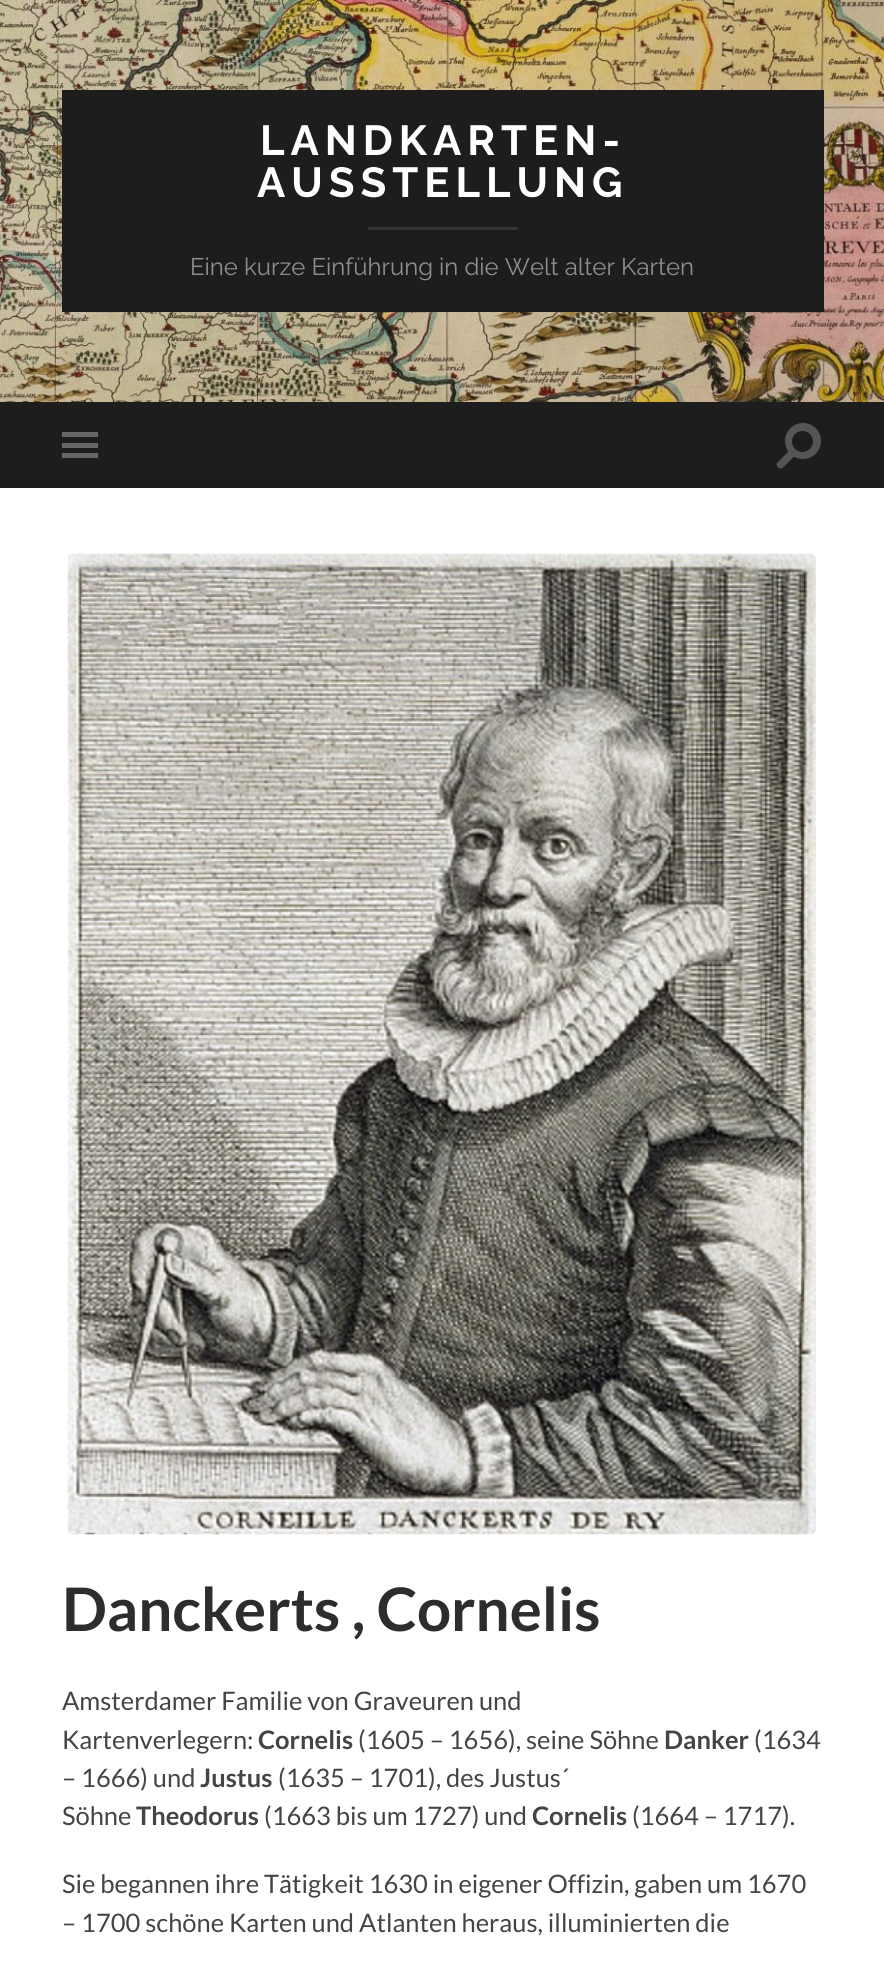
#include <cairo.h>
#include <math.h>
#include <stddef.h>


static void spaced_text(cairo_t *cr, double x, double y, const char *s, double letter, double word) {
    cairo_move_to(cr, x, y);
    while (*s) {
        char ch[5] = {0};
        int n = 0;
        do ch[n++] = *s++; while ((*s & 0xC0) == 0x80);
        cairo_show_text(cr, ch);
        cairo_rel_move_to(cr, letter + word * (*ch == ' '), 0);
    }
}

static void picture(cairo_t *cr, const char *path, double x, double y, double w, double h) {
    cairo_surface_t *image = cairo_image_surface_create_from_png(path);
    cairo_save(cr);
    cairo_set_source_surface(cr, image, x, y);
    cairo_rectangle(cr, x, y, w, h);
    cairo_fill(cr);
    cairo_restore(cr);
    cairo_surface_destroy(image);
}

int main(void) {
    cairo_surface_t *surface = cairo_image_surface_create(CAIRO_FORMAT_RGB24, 884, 1961);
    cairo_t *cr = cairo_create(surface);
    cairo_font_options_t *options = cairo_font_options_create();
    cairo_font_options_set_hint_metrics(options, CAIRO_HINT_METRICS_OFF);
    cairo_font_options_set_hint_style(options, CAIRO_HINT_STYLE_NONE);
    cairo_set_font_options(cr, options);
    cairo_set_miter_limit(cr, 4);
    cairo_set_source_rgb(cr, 1, 1, 1);
    cairo_paint(cr);
    picture(cr, "img1.png", 0, 0, 884, 402);
    cairo_set_source_rgb(cr, 0.114, 0.114, 0.114);
    cairo_rectangle(cr, 62, 90, 762, 222);
    cairo_fill(cr);
    cairo_select_font_face(cr, "Raleway Thin", CAIRO_FONT_SLANT_NORMAL, CAIRO_FONT_WEIGHT_NORMAL);
    cairo_set_font_size(cr, 42);
    cairo_set_source_rgb(cr, 1, 1, 1);
    spaced_text(cr, 260, 155, "LANDKARTEN-", 6, 0);
    spaced_text(cr, 257, 197, "AUSSTELLUNG", 6, 0);
    cairo_set_source_rgb(cr, 0.204, 0.204, 0.204);
    cairo_rectangle(cr, 368, 227, 150, 3);
    cairo_fill(cr);
    cairo_select_font_face(cr, "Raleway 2 Thin", CAIRO_FONT_SLANT_NORMAL, CAIRO_FONT_WEIGHT_NORMAL);
    cairo_set_font_size(cr, 24);
    cairo_set_source_rgb(cr, 0.557, 0.557, 0.557);
    cairo_move_to(cr, 190, 275);
    cairo_show_text(cr, "Eine kurze Einführung in die Welt alter Karten");
    cairo_set_source_rgb(cr, 0.114, 0.114, 0.114);
    cairo_rectangle(cr, 0, 402, 884, 86);
    cairo_fill(cr);
    cairo_set_source_rgb(cr, 0.4, 0.4, 0.4);
    cairo_rectangle(cr, 62, 432, 36, 5);
    cairo_fill(cr);
    cairo_rectangle(cr, 62, 443, 36, 5);
    cairo_fill(cr);
    cairo_rectangle(cr, 62, 453, 36, 5);
    cairo_fill(cr);
    cairo_set_source_rgb(cr, 0.333, 0.333, 0.333);
    cairo_arc(cr, 803, 441, 18, 0, 2 * M_PI);
    cairo_fill(cr);
    cairo_set_source_rgb(cr, 0.114, 0.114, 0.114);
    cairo_arc(cr, 802.5, 441.5, 10.5, 0, 2 * M_PI);
    cairo_fill(cr);
    cairo_set_source_rgb(cr, 0.333, 0.333, 0.333);
    cairo_new_path(cr);
    cairo_move_to(cr, 777.5, 462.5);
    cairo_line_to(cr, 790.5, 449.5);
    cairo_line_to(cr, 795.5, 455);
    cairo_line_to(cr, 787, 463.5);
    cairo_curve_to(cr, 784, 466.5, 781, 471.5, 777, 466);
    cairo_curve_to(cr, 776.5, 465, 776.5, 463.5, 777.5, 462.5);
    cairo_close_path(cr);
    cairo_fill(cr);
    picture(cr, "img2.png", 67, 553, 749, 982);
    cairo_select_font_face(cr, "Lato", CAIRO_FONT_SLANT_NORMAL, CAIRO_FONT_WEIGHT_BOLD);
    cairo_set_font_size(cr, 60);
    cairo_set_source_rgb(cr, 0.176, 0.176, 0.176);
    cairo_move_to(cr, 62, 1631);
    cairo_show_text(cr, "Danckerts , Cornelis");
    cairo_select_font_face(cr, "Lato", CAIRO_FONT_SLANT_NORMAL, CAIRO_FONT_WEIGHT_NORMAL);
    cairo_set_font_size(cr, 25.5);
    cairo_set_source_rgb(cr, 0.267, 0.267, 0.267);
    cairo_move_to(cr, 62, 1710);
    cairo_show_text(cr, "Amsterdamer Familie von Graveuren und");
    cairo_move_to(cr, 62, 1749);
    cairo_show_text(cr, "Kartenverlegern:");
    cairo_select_font_face(cr, "Lato", CAIRO_FONT_SLANT_NORMAL, CAIRO_FONT_WEIGHT_BOLD);
    cairo_move_to(cr, 258, 1749);
    cairo_show_text(cr, "Cornelis");
    cairo_select_font_face(cr, "Lato", CAIRO_FONT_SLANT_NORMAL, CAIRO_FONT_WEIGHT_NORMAL);
    cairo_move_to(cr, 358, 1749);
    cairo_show_text(cr, "(1605 – 1656), seine Söhne");
    cairo_select_font_face(cr, "Lato", CAIRO_FONT_SLANT_NORMAL, CAIRO_FONT_WEIGHT_BOLD);
    cairo_move_to(cr, 664, 1749);
    cairo_show_text(cr, "Danker");
    cairo_select_font_face(cr, "Lato", CAIRO_FONT_SLANT_NORMAL, CAIRO_FONT_WEIGHT_NORMAL);
    cairo_move_to(cr, 754, 1749);
    cairo_show_text(cr, "(1634");
    cairo_move_to(cr, 62, 1787);
    cairo_show_text(cr, "– 1666) und");
    cairo_select_font_face(cr, "Lato", CAIRO_FONT_SLANT_NORMAL, CAIRO_FONT_WEIGHT_BOLD);
    cairo_move_to(cr, 200, 1787);
    cairo_show_text(cr, "Justus");
    cairo_select_font_face(cr, "Lato", CAIRO_FONT_SLANT_NORMAL, CAIRO_FONT_WEIGHT_NORMAL);
    cairo_move_to(cr, 278, 1787);
    cairo_show_text(cr, "(1635 – 1701), des Justus´");
    cairo_move_to(cr, 62, 1825);
    cairo_show_text(cr, "Söhne");
    cairo_select_font_face(cr, "Lato", CAIRO_FONT_SLANT_NORMAL, CAIRO_FONT_WEIGHT_BOLD);
    cairo_move_to(cr, 136, 1825);
    cairo_show_text(cr, "Theodorus");
    cairo_select_font_face(cr, "Lato", CAIRO_FONT_SLANT_NORMAL, CAIRO_FONT_WEIGHT_NORMAL);
    cairo_move_to(cr, 264, 1825);
    cairo_show_text(cr, "(1663 bis um 1727) und");
    cairo_select_font_face(cr, "Lato", CAIRO_FONT_SLANT_NORMAL, CAIRO_FONT_WEIGHT_BOLD);
    cairo_move_to(cr, 532, 1825);
    cairo_show_text(cr, "Cornelis");
    cairo_select_font_face(cr, "Lato", CAIRO_FONT_SLANT_NORMAL, CAIRO_FONT_WEIGHT_NORMAL);
    cairo_move_to(cr, 632, 1825);
    cairo_show_text(cr, "(1664 – 1717).");
    cairo_move_to(cr, 62, 1893);
    cairo_show_text(cr, "Sie begannen ihre Tätigkeit 1630 in eigener Offizin, gaben um 1670");
    cairo_move_to(cr, 62, 1932);
    cairo_show_text(cr, "– 1700 schöne Karten und Atlanten heraus, illuminierten die");
    cairo_surface_write_to_png(surface, "page.png");
    cairo_font_options_destroy(options);
    cairo_destroy(cr);
    cairo_surface_destroy(surface);
    return 0;
}
